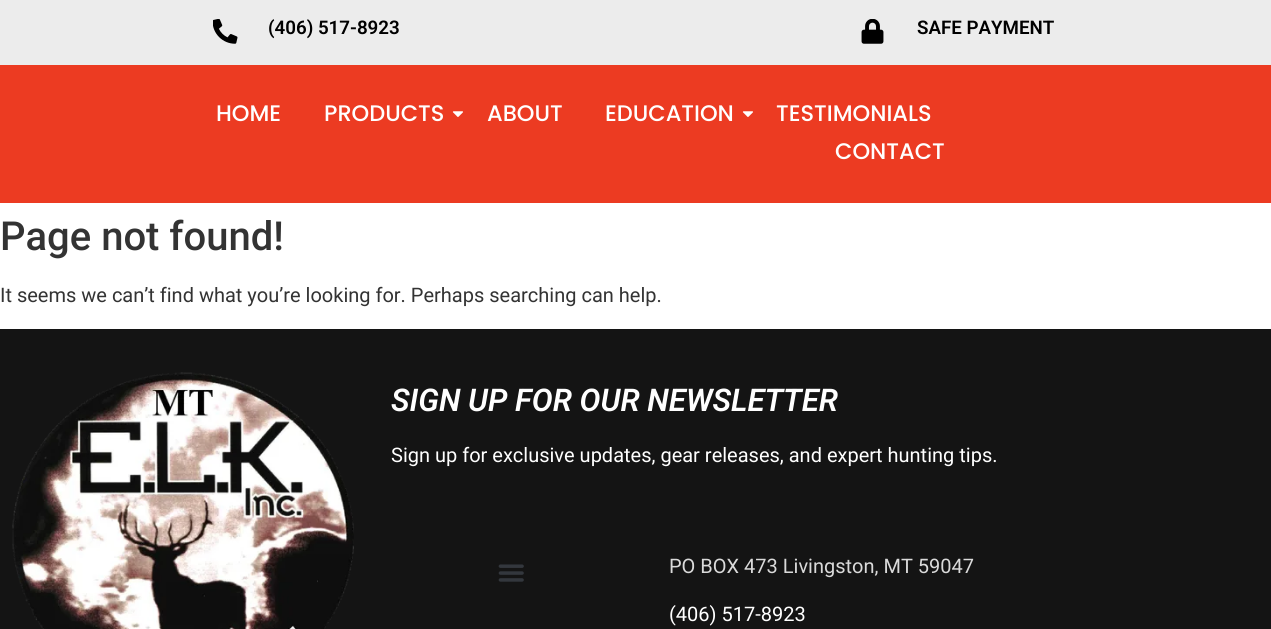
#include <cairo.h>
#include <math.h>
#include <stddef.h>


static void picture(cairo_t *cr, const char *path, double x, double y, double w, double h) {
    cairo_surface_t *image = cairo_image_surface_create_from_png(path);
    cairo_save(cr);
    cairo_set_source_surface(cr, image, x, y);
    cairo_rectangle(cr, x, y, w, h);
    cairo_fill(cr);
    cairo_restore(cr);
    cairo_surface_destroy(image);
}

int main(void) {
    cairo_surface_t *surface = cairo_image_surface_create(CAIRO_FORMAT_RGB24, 1271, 629);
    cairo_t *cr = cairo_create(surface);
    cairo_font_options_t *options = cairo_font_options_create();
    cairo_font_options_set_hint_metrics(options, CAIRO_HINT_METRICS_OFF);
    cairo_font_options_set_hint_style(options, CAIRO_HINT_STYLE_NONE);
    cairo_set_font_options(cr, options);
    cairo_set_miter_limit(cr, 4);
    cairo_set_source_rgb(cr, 1, 1, 1);
    cairo_paint(cr);
    cairo_set_source_rgb(cr, 0.925, 0.925, 0.925);
    cairo_rectangle(cr, 0, 0, 1271, 65);
    cairo_fill(cr);
    picture(cr, "img1.png", 213, 19, 25, 25);
    cairo_select_font_face(cr, "Roboto SemiBold", CAIRO_FONT_SLANT_NORMAL, CAIRO_FONT_WEIGHT_NORMAL);
    cairo_set_font_size(cr, 18.75);
    cairo_set_source_rgb(cr, 0, 0, 0);
    cairo_move_to(cr, 268, 34);
    cairo_show_text(cr, "(406) 517-8923");
    picture(cr, "img2.png", 861, 19, 23, 25);
    cairo_move_to(cr, 917, 34);
    cairo_show_text(cr, "SAFE PAYMENT");
    cairo_set_source_rgb(cr, 0.922, 0.231, 0.133);
    cairo_rectangle(cr, 0, 65, 1271, 138);
    cairo_fill(cr);
    cairo_select_font_face(cr, "Poppins Medium", CAIRO_FONT_SLANT_NORMAL, CAIRO_FONT_WEIGHT_NORMAL);
    cairo_set_font_size(cr, 22.5);
    cairo_set_source_rgb(cr, 1, 1, 1);
    cairo_move_to(cr, 216, 121);
    cairo_show_text(cr, "HOME");
    cairo_move_to(cr, 324, 121);
    cairo_show_text(cr, "PRODUCTS");
    picture(cr, "img3.png", 452, 111, 11, 6);
    cairo_move_to(cr, 487, 121);
    cairo_show_text(cr, "ABOUT");
    cairo_move_to(cr, 605, 121);
    cairo_show_text(cr, "EDUCATION");
    picture(cr, "img3.png", 742, 111, 11, 6);
    cairo_move_to(cr, 776, 121);
    cairo_show_text(cr, "TESTIMONIALS");
    cairo_move_to(cr, 835, 159);
    cairo_show_text(cr, "CONTACT");
    cairo_select_font_face(cr, "Roboto Medium", CAIRO_FONT_SLANT_NORMAL, CAIRO_FONT_WEIGHT_NORMAL);
    cairo_set_font_size(cr, 40);
    cairo_set_source_rgb(cr, 0.2, 0.2, 0.2);
    cairo_move_to(cr, 0, 250);
    cairo_show_text(cr, "Page not found!");
    cairo_select_font_face(cr, "Roboto", CAIRO_FONT_SLANT_NORMAL, CAIRO_FONT_WEIGHT_NORMAL);
    cairo_set_font_size(cr, 20);
    cairo_move_to(cr, 0, 302);
    cairo_show_text(cr, "It seems we can’t find what you’re looking for. Perhaps searching can help.");
    cairo_set_source_rgb(cr, 0.082, 0.082, 0.082);
    cairo_rectangle(cr, 0, 329, 1271, 300);
    cairo_fill(cr);
    picture(cr, "img4.png", 12, 372, 342, 257);
    cairo_select_font_face(cr, "Roboto SemiBold", CAIRO_FONT_SLANT_ITALIC, CAIRO_FONT_WEIGHT_NORMAL);
    cairo_set_font_size(cr, 31.25);
    cairo_set_source_rgb(cr, 1, 1, 1);
    cairo_move_to(cr, 391, 411);
    cairo_show_text(cr, "SIGN UP FOR OUR NEWSLETTER");
    cairo_select_font_face(cr, "Roboto", CAIRO_FONT_SLANT_NORMAL, CAIRO_FONT_WEIGHT_NORMAL);
    cairo_set_font_size(cr, 20);
    cairo_move_to(cr, 391, 462);
    cairo_show_text(cr, "Sign up for exclusive updates, gear releases, and expert hunting tips.");
    picture(cr, "img5.png", 498, 564, 26, 18);
    cairo_set_source_rgb(cr, 0.855, 0.855, 0.855);
    cairo_move_to(cr, 669, 573);
    cairo_show_text(cr, "PO BOX 473 Livingston, MT 59047");
    cairo_set_source_rgb(cr, 1, 1, 1);
    cairo_move_to(cr, 669, 621);
    cairo_show_text(cr, "(406) 517-8923");
    cairo_surface_write_to_png(surface, "page.png");
    cairo_font_options_destroy(options);
    cairo_destroy(cr);
    cairo_surface_destroy(surface);
    return 0;
}
